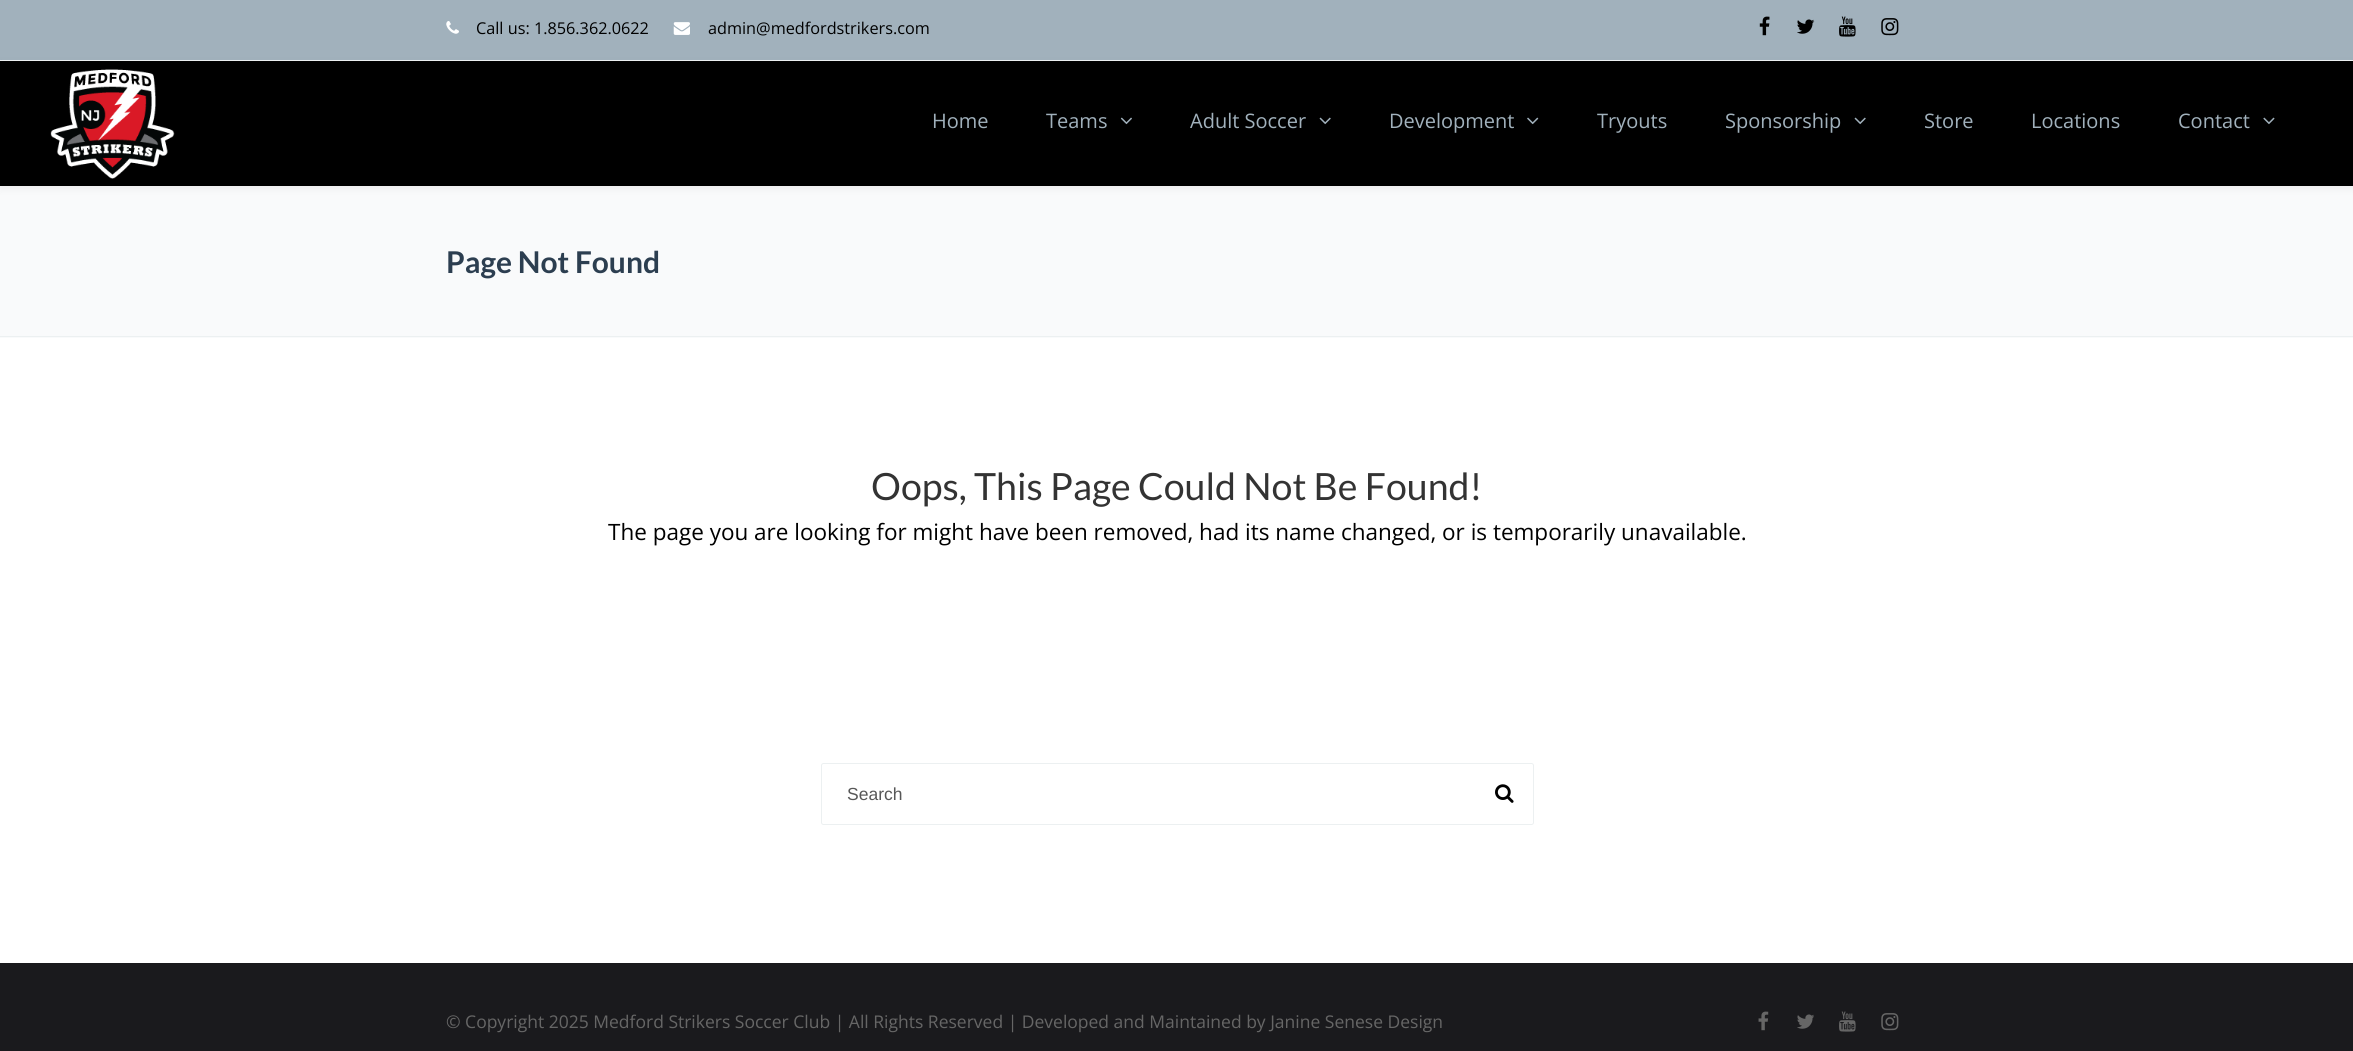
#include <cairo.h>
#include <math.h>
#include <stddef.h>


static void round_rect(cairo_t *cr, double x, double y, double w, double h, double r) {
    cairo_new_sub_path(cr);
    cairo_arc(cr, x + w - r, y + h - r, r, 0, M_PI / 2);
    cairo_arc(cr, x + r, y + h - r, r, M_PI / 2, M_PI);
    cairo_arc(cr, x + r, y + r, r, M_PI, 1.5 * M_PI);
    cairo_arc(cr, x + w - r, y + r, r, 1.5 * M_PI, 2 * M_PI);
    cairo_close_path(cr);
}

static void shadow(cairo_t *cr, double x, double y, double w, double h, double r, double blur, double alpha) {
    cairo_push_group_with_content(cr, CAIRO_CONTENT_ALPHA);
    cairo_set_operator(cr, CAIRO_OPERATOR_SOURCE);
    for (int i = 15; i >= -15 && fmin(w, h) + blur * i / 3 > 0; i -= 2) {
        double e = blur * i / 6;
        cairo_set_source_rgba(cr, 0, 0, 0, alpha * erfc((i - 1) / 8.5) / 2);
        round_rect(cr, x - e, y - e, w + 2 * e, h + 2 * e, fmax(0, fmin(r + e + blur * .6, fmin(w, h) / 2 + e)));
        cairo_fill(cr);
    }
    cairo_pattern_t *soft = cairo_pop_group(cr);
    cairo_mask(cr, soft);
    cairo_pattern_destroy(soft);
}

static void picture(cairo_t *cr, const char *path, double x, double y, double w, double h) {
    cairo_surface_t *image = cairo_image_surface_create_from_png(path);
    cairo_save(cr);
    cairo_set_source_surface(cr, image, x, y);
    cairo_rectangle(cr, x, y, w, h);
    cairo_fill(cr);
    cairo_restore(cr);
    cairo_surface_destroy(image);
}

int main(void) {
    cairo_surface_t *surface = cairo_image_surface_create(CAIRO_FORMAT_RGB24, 2353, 1051);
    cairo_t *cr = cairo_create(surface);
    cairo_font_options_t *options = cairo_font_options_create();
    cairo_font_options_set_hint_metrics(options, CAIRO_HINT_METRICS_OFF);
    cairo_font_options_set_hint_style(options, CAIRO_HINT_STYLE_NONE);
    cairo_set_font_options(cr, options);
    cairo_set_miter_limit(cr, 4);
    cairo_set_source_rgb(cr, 1, 1, 1);
    cairo_paint(cr);
    cairo_set_source_rgb(cr, 0.631, 0.694, 0.737);
    cairo_rectangle(cr, 0, 0, 2353, 60);
    cairo_fill(cr);
    picture(cr, "img1.png", 446, 21, 13, 13);
    cairo_select_font_face(cr, "Open Sans", CAIRO_FONT_SLANT_NORMAL, CAIRO_FONT_WEIGHT_NORMAL);
    cairo_set_font_size(cr, 16.25);
    cairo_set_source_rgb(cr, 0, 0, 0);
    cairo_move_to(cr, 476, 34);
    cairo_show_text(cr, "Call us: 1.856.362.0622");
    picture(cr, "img2.png", 673, 22, 17, 13);
    cairo_move_to(cr, 708, 34);
    cairo_show_text(cr, "admin@medfordstrikers.com");
    picture(cr, "img3.png", 1759, 16, 11, 20);
    picture(cr, "img4.png", 1797, 19, 18, 15);
    picture(cr, "img5.png", 1839, 16, 17, 21);
    picture(cr, "img6.png", 1881, 18, 18, 18);
    cairo_set_source_rgb(cr, 0.976, 0.98, 0.984);
    cairo_rectangle(cr, 0, 186, 2353, 152);
    cairo_fill(cr);
    cairo_set_source_rgb(cr, 0, 0, 0);
    shadow(cr, 0, 63, 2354, 126, 0, 4, 0.05);
    cairo_set_source_rgb(cr, 0, 0, 0);
    cairo_rectangle(cr, 0, 61, 2353, 125);
    cairo_fill(cr);
    cairo_set_source_rgb(cr, 0.925, 0.941, 0.945);
    cairo_rectangle(cr, 0, 60, 2353, 1);
    cairo_fill(cr);
    picture(cr, "img7.png", 50, 69, 125, 110);
    cairo_set_font_size(cr, 20);
    cairo_set_source_rgb(cr, 0.631, 0.694, 0.737);
    cairo_move_to(cr, 932, 128);
    cairo_show_text(cr, "Home");
    cairo_move_to(cr, 1046, 128);
    cairo_show_text(cr, "Teams");
    picture(cr, "img8.png", 1120, 117, 12, 8);
    cairo_move_to(cr, 1190, 128);
    cairo_show_text(cr, "Adult Soccer");
    picture(cr, "img9.png", 1319, 117, 12, 8);
    cairo_move_to(cr, 1389, 128);
    cairo_show_text(cr, "Development");
    picture(cr, "img10.png", 1527, 117, 12, 8);
    cairo_move_to(cr, 1597, 128);
    cairo_show_text(cr, "Tryouts");
    cairo_move_to(cr, 1725, 128);
    cairo_show_text(cr, "Sponsorship");
    picture(cr, "img9.png", 1854, 117, 12, 8);
    cairo_move_to(cr, 1924, 128);
    cairo_show_text(cr, "Store");
    cairo_move_to(cr, 2031, 128);
    cairo_show_text(cr, "Locations");
    cairo_move_to(cr, 2178, 128);
    cairo_show_text(cr, "Contact");
    picture(cr, "img11.png", 2263, 117, 12, 8);
    cairo_set_source_rgb(cr, 0.925, 0.941, 0.945);
    cairo_rectangle(cr, 0, 336, 2353, 1);
    cairo_fill(cr);
    cairo_select_font_face(cr, "Lato", CAIRO_FONT_SLANT_NORMAL, CAIRO_FONT_WEIGHT_BOLD);
    cairo_set_font_size(cr, 30);
    cairo_set_source_rgb(cr, 0.173, 0.243, 0.314);
    cairo_move_to(cr, 446, 273);
    cairo_show_text(cr, "Page Not Found");
    cairo_select_font_face(cr, "Lato", CAIRO_FONT_SLANT_NORMAL, CAIRO_FONT_WEIGHT_NORMAL);
    cairo_set_font_size(cr, 37.5);
    cairo_set_source_rgb(cr, 0.2, 0.2, 0.2);
    cairo_move_to(cr, 871, 500);
    cairo_show_text(cr, "Oops, This Page Could Not Be Found!");
    cairo_select_font_face(cr, "Open Sans", CAIRO_FONT_SLANT_NORMAL, CAIRO_FONT_WEIGHT_NORMAL);
    cairo_set_font_size(cr, 22.5);
    cairo_set_source_rgb(cr, 0, 0, 0);
    cairo_move_to(cr, 608, 540);
    cairo_show_text(cr, "The page you are looking for might have been removed, had its name changed, or is temporarily unavailable.");
    round_rect(cr, 821.5, 763.5, 712, 61, 2);
    cairo_set_source_rgb(cr, 0.925, 0.941, 0.945);
    cairo_set_line_width(cr, 1);
    cairo_stroke(cr);
    cairo_select_font_face(cr, "Liberation Sans", CAIRO_FONT_SLANT_NORMAL, CAIRO_FONT_WEIGHT_NORMAL);
    cairo_set_font_size(cr, 17.5);
    cairo_set_source_rgb(cr, 0.341, 0.341, 0.341);
    cairo_move_to(cr, 847, 800);
    cairo_show_text(cr, "Search");
    picture(cr, "img12.png", 1495, 784, 19, 19);
    cairo_set_source_rgb(cr, 0.102, 0.102, 0.114);
    cairo_rectangle(cr, 0, 963, 2353, 88);
    cairo_fill(cr);
    cairo_select_font_face(cr, "Open Sans", CAIRO_FONT_SLANT_NORMAL, CAIRO_FONT_WEIGHT_NORMAL);
    cairo_set_source_rgb(cr, 0.4, 0.4, 0.4);
    cairo_move_to(cr, 446, 1028);
    cairo_show_text(cr, "© Copyright 2025 Medford Strikers Soccer Club | All Rights Reserved | Developed and Maintained by Janine Senese Design");
    picture(cr, "img13.png", 1758, 1011, 11, 20);
    picture(cr, "img14.png", 1797, 1014, 17, 15);
    picture(cr, "img15.png", 1839, 1011, 17, 21);
    picture(cr, "img16.png", 1881, 1013, 18, 18);
    cairo_surface_write_to_png(surface, "page.png");
    cairo_font_options_destroy(options);
    cairo_destroy(cr);
    cairo_surface_destroy(surface);
    return 0;
}
